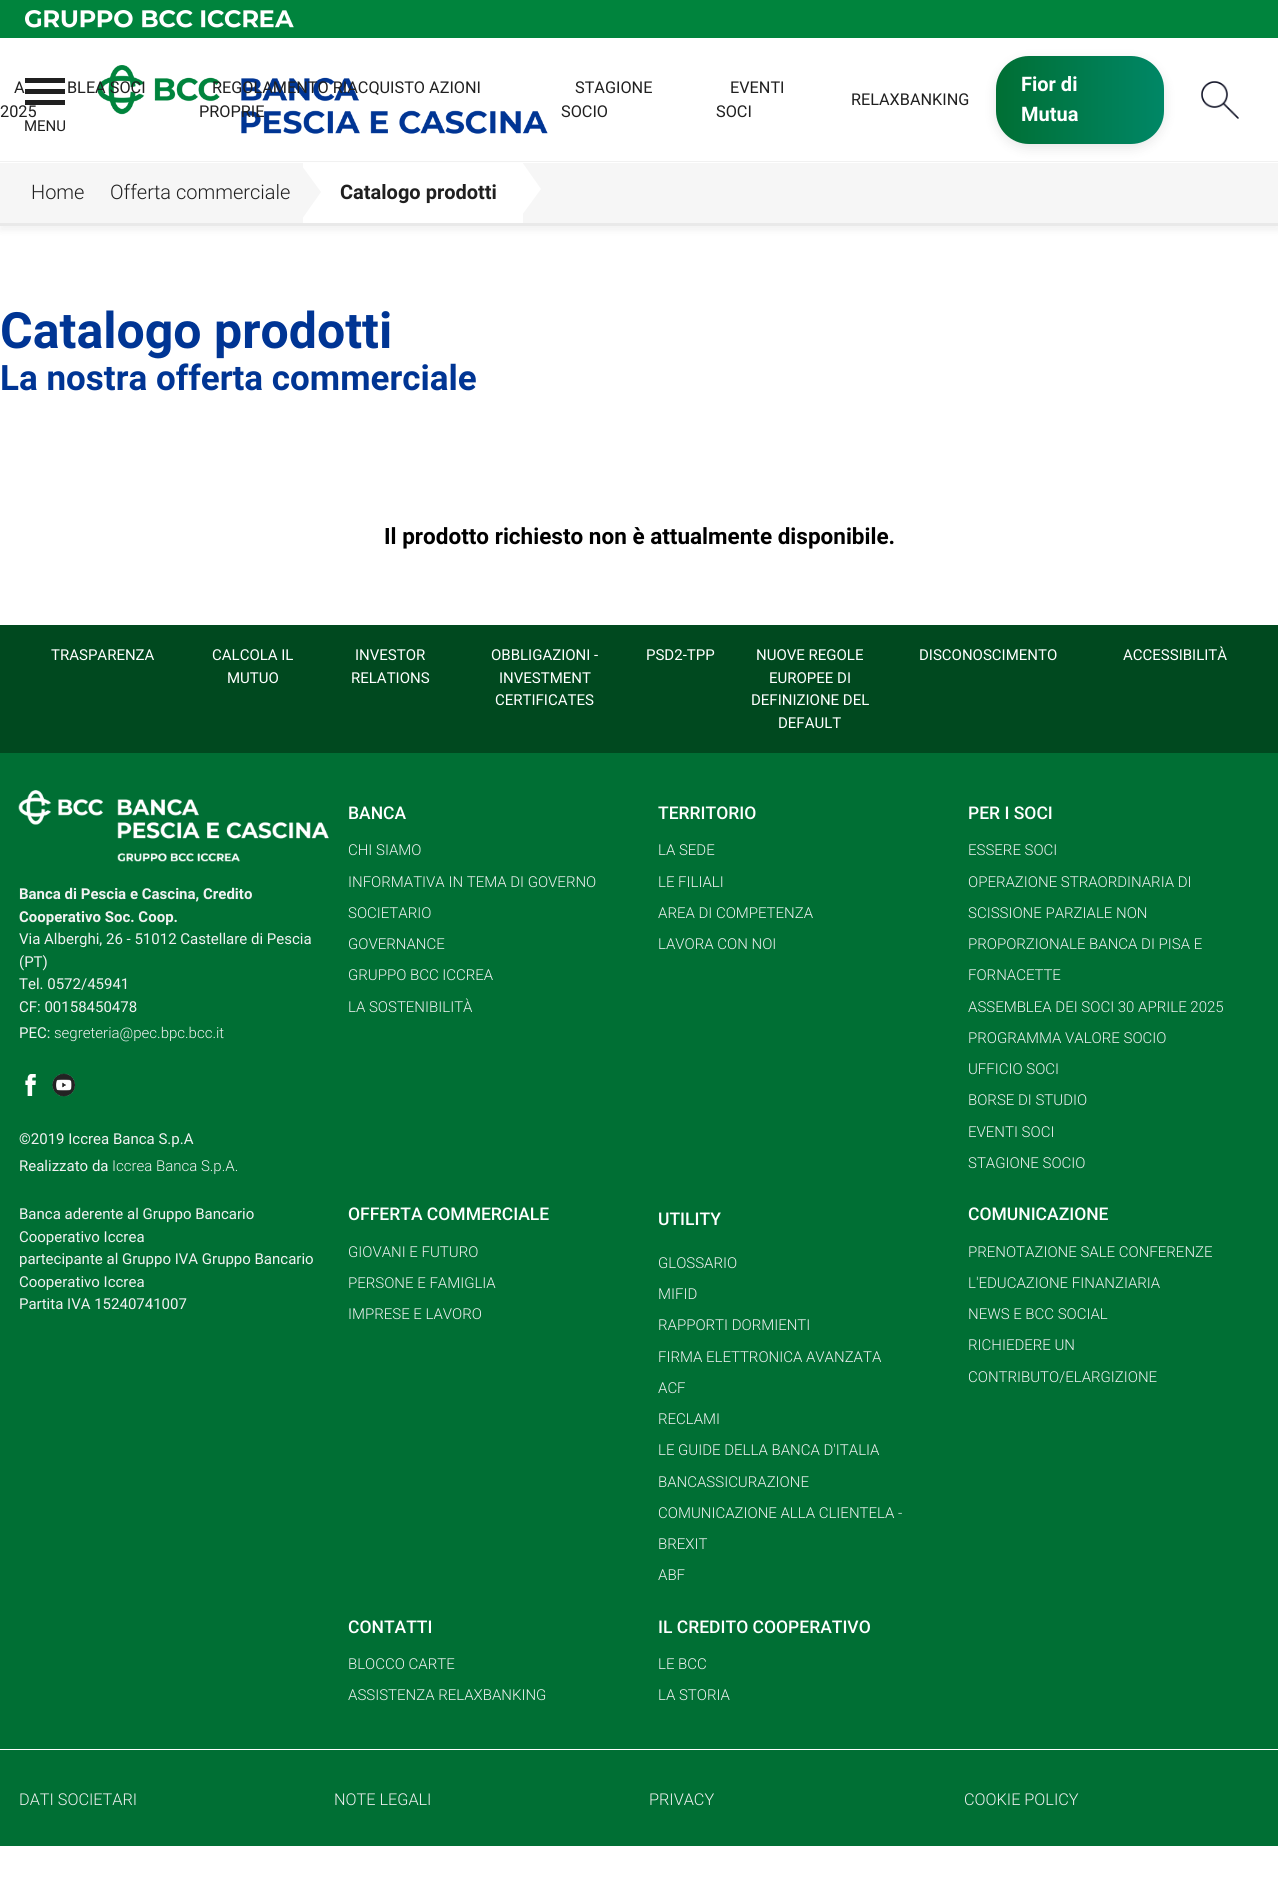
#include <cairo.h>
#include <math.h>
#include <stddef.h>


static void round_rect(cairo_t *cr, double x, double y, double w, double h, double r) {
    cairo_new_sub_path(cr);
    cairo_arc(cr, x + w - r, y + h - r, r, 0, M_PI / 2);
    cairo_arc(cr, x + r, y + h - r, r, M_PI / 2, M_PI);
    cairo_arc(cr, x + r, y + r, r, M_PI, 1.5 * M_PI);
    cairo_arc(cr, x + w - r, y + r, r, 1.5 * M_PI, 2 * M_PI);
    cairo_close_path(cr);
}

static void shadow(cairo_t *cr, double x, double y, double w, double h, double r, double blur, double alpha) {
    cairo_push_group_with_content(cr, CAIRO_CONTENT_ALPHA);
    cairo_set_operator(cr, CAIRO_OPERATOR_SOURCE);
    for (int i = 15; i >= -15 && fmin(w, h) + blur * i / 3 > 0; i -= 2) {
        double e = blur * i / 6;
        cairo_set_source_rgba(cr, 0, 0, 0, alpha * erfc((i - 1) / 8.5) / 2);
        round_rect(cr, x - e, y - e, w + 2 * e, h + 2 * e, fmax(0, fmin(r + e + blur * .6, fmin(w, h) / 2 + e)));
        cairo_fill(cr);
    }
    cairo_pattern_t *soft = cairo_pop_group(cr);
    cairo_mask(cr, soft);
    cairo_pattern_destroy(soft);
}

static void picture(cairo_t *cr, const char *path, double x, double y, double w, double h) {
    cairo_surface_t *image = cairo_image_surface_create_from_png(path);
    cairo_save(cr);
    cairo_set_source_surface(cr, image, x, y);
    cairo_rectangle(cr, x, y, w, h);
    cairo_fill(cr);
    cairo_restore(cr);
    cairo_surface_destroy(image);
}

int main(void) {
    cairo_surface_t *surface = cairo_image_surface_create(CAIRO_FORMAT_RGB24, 1278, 1885);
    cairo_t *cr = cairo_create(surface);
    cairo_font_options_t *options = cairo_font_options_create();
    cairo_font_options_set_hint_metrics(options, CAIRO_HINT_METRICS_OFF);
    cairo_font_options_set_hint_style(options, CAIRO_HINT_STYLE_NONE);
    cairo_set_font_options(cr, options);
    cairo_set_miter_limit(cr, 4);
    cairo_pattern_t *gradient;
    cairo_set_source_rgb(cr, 1, 1, 1);
    cairo_paint(cr);
    cairo_set_source_rgb(cr, 0, 0.518, 0.239);
    cairo_rectangle(cr, 0, 0, 1278, 38);
    cairo_fill(cr);
    picture(cr, "img1.png", 25, 10, 269, 18);
    cairo_set_source_rgb(cr, 0, 0, 0);
    shadow(cr, 0, 169, 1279, 62, 0, 3, 0.05);
    cairo_set_source_rgb(cr, 0.945, 0.945, 0.945);
    cairo_rectangle(cr, 0, 161, 1278, 1);
    cairo_fill(cr);
    picture(cr, "img2.png", 97, 65, 451, 69);
    cairo_select_font_face(cr, "Roboto", CAIRO_FONT_SLANT_NORMAL, CAIRO_FONT_WEIGHT_NORMAL);
    cairo_set_font_size(cr, 16.25);
    cairo_set_source_rgb(cr, 0.125, 0.125, 0.125);
    cairo_move_to(cr, 14, 93);
    cairo_show_text(cr, "A");
    cairo_move_to(cr, 67, 93);
    cairo_show_text(cr, "BLEA SOCI");
    cairo_move_to(cr, 0, 117);
    cairo_show_text(cr, "2025");
    cairo_move_to(cr, 212, 93);
    cairo_show_text(cr, "REGOLAMENTO RIACQUISTO AZIONI");
    cairo_move_to(cr, 199, 117);
    cairo_show_text(cr, "PROPRIE");
    cairo_move_to(cr, 575, 93);
    cairo_show_text(cr, "STAGIONE");
    cairo_move_to(cr, 561, 117);
    cairo_show_text(cr, "SOCIO");
    cairo_move_to(cr, 730, 93);
    cairo_show_text(cr, "EVENTI");
    cairo_move_to(cr, 716, 117);
    cairo_show_text(cr, "SOCI");
    cairo_move_to(cr, 851, 105);
    cairo_show_text(cr, "RELAXBANKING");
    cairo_set_source_rgb(cr, 0.961, 0.961, 0.961);
    cairo_rectangle(cr, 0, 163, 1278, 60);
    cairo_fill(cr);
    cairo_set_source_rgb(cr, 0, 0, 0);
    shadow(cr, 996, 60, 168, 88, 33, 6, 0.1);
    gradient = cairo_pattern_create_linear(1164, 100, 996, 100);
    cairo_pattern_add_color_stop_rgba(gradient, 0, 0, 0.529, 0.4, 1);
    cairo_pattern_add_color_stop_rgba(gradient, 1, 0, 0.435, 0.204, 1);
    cairo_set_source(cr, gradient);
    cairo_pattern_destroy(gradient);
    round_rect(cr, 996, 56, 168, 88, 33);
    cairo_fill(cr);
    cairo_select_font_face(cr, "Roboto", CAIRO_FONT_SLANT_NORMAL, CAIRO_FONT_WEIGHT_BOLD);
    cairo_set_font_size(cr, 20);
    cairo_set_source_rgb(cr, 1, 1, 1);
    cairo_move_to(cr, 1021, 91);
    cairo_show_text(cr, "Fior di");
    cairo_move_to(cr, 1021, 121);
    cairo_show_text(cr, "Mutua");
    picture(cr, "img3.png", 1201, 81, 38, 38);
    cairo_set_source_rgb(cr, 0.125, 0.125, 0.125);
    cairo_rectangle(cr, 25, 89, 40, 5);
    cairo_fill(cr);
    cairo_rectangle(cr, 25, 78, 40, 5);
    cairo_fill(cr);
    cairo_rectangle(cr, 25, 100, 40, 5);
    cairo_fill(cr);
    cairo_select_font_face(cr, "Roboto", CAIRO_FONT_SLANT_NORMAL, CAIRO_FONT_WEIGHT_NORMAL);
    cairo_set_font_size(cr, 15);
    cairo_move_to(cr, 24, 131);
    cairo_show_text(cr, "MENU");
    cairo_set_source_rgb(cr, 0.914, 0.914, 0.914);
    cairo_rectangle(cr, 0, 223, 1278, 3);
    cairo_fill(cr);
    cairo_select_font_face(cr, "Roboto Light", CAIRO_FONT_SLANT_NORMAL, CAIRO_FONT_WEIGHT_NORMAL);
    cairo_set_font_size(cr, 20);
    cairo_set_source_rgb(cr, 0.125, 0.125, 0.125);
    cairo_move_to(cr, 31, 199);
    cairo_show_text(cr, "Home");
    cairo_move_to(cr, 110, 199);
    cairo_show_text(cr, "Offerta commerciale");
    cairo_set_source_rgb(cr, 1, 1, 1);
    cairo_rectangle(cr, 303, 163, 220, 60);
    cairo_fill(cr);
    cairo_set_source_rgb(cr, 0.961, 0.961, 0.961);
    cairo_new_path(cr);
    cairo_move_to(cr, 302, 219);
    cairo_line_to(cr, 302, 166);
    cairo_line_to(cr, 321, 192);
    cairo_close_path(cr);
    cairo_fill(cr);
    cairo_select_font_face(cr, "Roboto", CAIRO_FONT_SLANT_NORMAL, CAIRO_FONT_WEIGHT_BOLD);
    cairo_set_source_rgb(cr, 0.125, 0.125, 0.125);
    cairo_move_to(cr, 340, 199);
    cairo_show_text(cr, "Catalogo prodotti");
    cairo_set_source_rgb(cr, 1, 1, 1);
    cairo_new_path(cr);
    cairo_move_to(cr, 522, 215);
    cairo_line_to(cr, 522, 162);
    cairo_line_to(cr, 541, 189);
    cairo_close_path(cr);
    cairo_fill(cr);
    cairo_set_font_size(cr, 50);
    cairo_set_source_rgb(cr, 0, 0.208, 0.58);
    cairo_move_to(cr, 0, 348);
    cairo_show_text(cr, "Catalogo prodotti");
    cairo_set_font_size(cr, 35);
    cairo_move_to(cr, 0, 390);
    cairo_show_text(cr, "La nostra offerta commerciale");
    cairo_set_font_size(cr, 22.5);
    cairo_set_source_rgb(cr, 0, 0, 0);
    cairo_move_to(cr, 384, 544);
    cairo_show_text(cr, "Il prodotto richiesto non è attualmente disponibile.");
    cairo_set_source_rgb(cr, 0, 0.286, 0.122);
    cairo_rectangle(cr, 0, 625, 1278, 128);
    cairo_fill(cr);
    cairo_select_font_face(cr, "Roboto", CAIRO_FONT_SLANT_NORMAL, CAIRO_FONT_WEIGHT_NORMAL);
    cairo_set_font_size(cr, 15);
    cairo_set_source_rgb(cr, 1, 1, 1);
    cairo_move_to(cr, 51, 660);
    cairo_show_text(cr, "TRASPARENZA");
    cairo_move_to(cr, 212, 660);
    cairo_show_text(cr, "CALCOLA IL");
    cairo_move_to(cr, 227, 683);
    cairo_show_text(cr, "MUTUO");
    cairo_move_to(cr, 355, 660);
    cairo_show_text(cr, "INVESTOR");
    cairo_move_to(cr, 351, 683);
    cairo_show_text(cr, "RELATIONS");
    cairo_move_to(cr, 491, 660);
    cairo_show_text(cr, "OBBLIGAZIONI -");
    cairo_move_to(cr, 499, 683);
    cairo_show_text(cr, "INVESTMENT");
    cairo_move_to(cr, 495, 705);
    cairo_show_text(cr, "CERTIFICATES");
    cairo_move_to(cr, 646, 660);
    cairo_show_text(cr, "PSD2-TPP");
    cairo_move_to(cr, 756, 660);
    cairo_show_text(cr, "NUOVE REGOLE");
    cairo_move_to(cr, 769, 683);
    cairo_show_text(cr, "EUROPEE DI");
    cairo_move_to(cr, 751, 705);
    cairo_show_text(cr, "DEFINIZIONE DEL");
    cairo_move_to(cr, 778, 728);
    cairo_show_text(cr, "DEFAULT");
    cairo_move_to(cr, 919, 660);
    cairo_show_text(cr, "DISCONOSCIMENTO");
    cairo_move_to(cr, 1123, 660);
    cairo_show_text(cr, "ACCESSIBILITÀ");
    cairo_set_source_rgb(cr, 0, 0.435, 0.204);
    cairo_rectangle(cr, 0, 753, 1278, 1093);
    cairo_fill(cr);
    picture(cr, "img4.png", 18, 790, 311, 72);
    cairo_select_font_face(cr, "Roboto", CAIRO_FONT_SLANT_NORMAL, CAIRO_FONT_WEIGHT_BOLD);
    cairo_set_source_rgb(cr, 0.945, 0.945, 0.945);
    cairo_move_to(cr, 19, 899);
    cairo_show_text(cr, "Banca di Pescia e Cascina, Credito");
    cairo_move_to(cr, 19, 922);
    cairo_show_text(cr, "Cooperativo Soc. Coop.");
    cairo_select_font_face(cr, "Roboto", CAIRO_FONT_SLANT_NORMAL, CAIRO_FONT_WEIGHT_NORMAL);
    cairo_move_to(cr, 19, 944);
    cairo_show_text(cr, "Via Alberghi, 26 - 51012 Castellare di Pescia");
    cairo_move_to(cr, 19, 967);
    cairo_show_text(cr, "(PT)");
    cairo_move_to(cr, 19, 989);
    cairo_show_text(cr, "Tel. 0572/45941");
    cairo_move_to(cr, 19, 1012);
    cairo_show_text(cr, "CF: 00158450478");
    cairo_move_to(cr, 19, 1038);
    cairo_show_text(cr, "PEC:");
    cairo_select_font_face(cr, "Roboto Light", CAIRO_FONT_SLANT_NORMAL, CAIRO_FONT_WEIGHT_NORMAL);
    cairo_move_to(cr, 54, 1038);
    cairo_show_text(cr, "segreteria@pec.bpc.bcc.it");
    picture(cr, "img5.png", 25, 1074, 11, 22);
    picture(cr, "img6.png", 52, 1073, 23, 24);
    cairo_select_font_face(cr, "Roboto", CAIRO_FONT_SLANT_NORMAL, CAIRO_FONT_WEIGHT_NORMAL);
    cairo_move_to(cr, 19, 1144);
    cairo_show_text(cr, "©2019 Iccrea Banca S.p.A");
    cairo_move_to(cr, 19, 1171);
    cairo_show_text(cr, "Realizzato da");
    cairo_select_font_face(cr, "Roboto Light", CAIRO_FONT_SLANT_NORMAL, CAIRO_FONT_WEIGHT_NORMAL);
    cairo_move_to(cr, 112, 1171);
    cairo_show_text(cr, "Iccrea Banca S.p.A.");
    cairo_select_font_face(cr, "Roboto", CAIRO_FONT_SLANT_NORMAL, CAIRO_FONT_WEIGHT_NORMAL);
    cairo_move_to(cr, 19, 1219);
    cairo_show_text(cr, "Banca aderente al Gruppo Bancario");
    cairo_move_to(cr, 19, 1242);
    cairo_show_text(cr, "Cooperativo Iccrea");
    cairo_move_to(cr, 19, 1264);
    cairo_show_text(cr, "partecipante al Gruppo IVA Gruppo Bancario");
    cairo_move_to(cr, 19, 1287);
    cairo_show_text(cr, "Cooperativo Iccrea");
    cairo_move_to(cr, 19, 1309);
    cairo_show_text(cr, "Partita IVA 15240741007");
    cairo_select_font_face(cr, "Roboto Medium", CAIRO_FONT_SLANT_NORMAL, CAIRO_FONT_WEIGHT_NORMAL);
    cairo_set_font_size(cr, 17.5);
    cairo_set_source_rgb(cr, 1, 1, 1);
    cairo_move_to(cr, 348, 819);
    cairo_show_text(cr, "BANCA");
    cairo_select_font_face(cr, "Roboto Light", CAIRO_FONT_SLANT_NORMAL, CAIRO_FONT_WEIGHT_NORMAL);
    cairo_set_font_size(cr, 15);
    cairo_set_source_rgb(cr, 0.945, 0.945, 0.945);
    cairo_move_to(cr, 348, 855);
    cairo_show_text(cr, "CHI SIAMO");
    cairo_move_to(cr, 348, 887);
    cairo_show_text(cr, "INFORMATIVA IN TEMA DI GOVERNO");
    cairo_move_to(cr, 348, 918);
    cairo_show_text(cr, "SOCIETARIO");
    cairo_move_to(cr, 348, 949);
    cairo_show_text(cr, "GOVERNANCE");
    cairo_move_to(cr, 348, 980);
    cairo_show_text(cr, "GRUPPO BCC ICCREA");
    cairo_move_to(cr, 348, 1012);
    cairo_show_text(cr, "LA SOSTENIBILITÀ");
    cairo_select_font_face(cr, "Roboto Medium", CAIRO_FONT_SLANT_NORMAL, CAIRO_FONT_WEIGHT_NORMAL);
    cairo_set_font_size(cr, 17.5);
    cairo_set_source_rgb(cr, 1, 1, 1);
    cairo_move_to(cr, 658, 819);
    cairo_show_text(cr, "TERRITORIO");
    cairo_select_font_face(cr, "Roboto Light", CAIRO_FONT_SLANT_NORMAL, CAIRO_FONT_WEIGHT_NORMAL);
    cairo_set_font_size(cr, 15);
    cairo_set_source_rgb(cr, 0.945, 0.945, 0.945);
    cairo_move_to(cr, 658, 855);
    cairo_show_text(cr, "LA SEDE");
    cairo_move_to(cr, 658, 887);
    cairo_show_text(cr, "LE FILIALI");
    cairo_move_to(cr, 658, 918);
    cairo_show_text(cr, "AREA DI COMPETENZA");
    cairo_move_to(cr, 658, 949);
    cairo_show_text(cr, "LAVORA CON NOI");
    cairo_select_font_face(cr, "Roboto Medium", CAIRO_FONT_SLANT_NORMAL, CAIRO_FONT_WEIGHT_NORMAL);
    cairo_set_font_size(cr, 17.5);
    cairo_set_source_rgb(cr, 1, 1, 1);
    cairo_move_to(cr, 968, 819);
    cairo_show_text(cr, "PER I SOCI");
    cairo_select_font_face(cr, "Roboto Light", CAIRO_FONT_SLANT_NORMAL, CAIRO_FONT_WEIGHT_NORMAL);
    cairo_set_font_size(cr, 15);
    cairo_set_source_rgb(cr, 0.945, 0.945, 0.945);
    cairo_move_to(cr, 968, 855);
    cairo_show_text(cr, "ESSERE SOCI");
    cairo_move_to(cr, 968, 887);
    cairo_show_text(cr, "OPERAZIONE STRAORDINARIA DI");
    cairo_move_to(cr, 968, 918);
    cairo_show_text(cr, "SCISSIONE PARZIALE NON");
    cairo_move_to(cr, 968, 949);
    cairo_show_text(cr, "PROPORZIONALE BANCA DI PISA E");
    cairo_move_to(cr, 968, 980);
    cairo_show_text(cr, "FORNACETTE");
    cairo_move_to(cr, 968, 1012);
    cairo_show_text(cr, "ASSEMBLEA DEI SOCI 30 APRILE 2025");
    cairo_move_to(cr, 968, 1043);
    cairo_show_text(cr, "PROGRAMMA VALORE SOCIO");
    cairo_move_to(cr, 968, 1074);
    cairo_show_text(cr, "UFFICIO SOCI");
    cairo_move_to(cr, 968, 1105);
    cairo_show_text(cr, "BORSE DI STUDIO");
    cairo_move_to(cr, 968, 1137);
    cairo_show_text(cr, "EVENTI SOCI");
    cairo_move_to(cr, 968, 1168);
    cairo_show_text(cr, "STAGIONE SOCIO");
    cairo_select_font_face(cr, "Roboto Medium", CAIRO_FONT_SLANT_NORMAL, CAIRO_FONT_WEIGHT_NORMAL);
    cairo_set_font_size(cr, 17.5);
    cairo_set_source_rgb(cr, 1, 1, 1);
    cairo_move_to(cr, 348, 1220);
    cairo_show_text(cr, "OFFERTA COMMERCIALE");
    cairo_select_font_face(cr, "Roboto Light", CAIRO_FONT_SLANT_NORMAL, CAIRO_FONT_WEIGHT_NORMAL);
    cairo_set_font_size(cr, 15);
    cairo_set_source_rgb(cr, 0.945, 0.945, 0.945);
    cairo_move_to(cr, 348, 1257);
    cairo_show_text(cr, "GIOVANI E FUTURO");
    cairo_move_to(cr, 348, 1288);
    cairo_show_text(cr, "PERSONE E FAMIGLIA");
    cairo_move_to(cr, 348, 1319);
    cairo_show_text(cr, "IMPRESE E LAVORO");
    cairo_select_font_face(cr, "Roboto Medium", CAIRO_FONT_SLANT_NORMAL, CAIRO_FONT_WEIGHT_NORMAL);
    cairo_set_font_size(cr, 17.5);
    cairo_set_source_rgb(cr, 1, 1, 1);
    cairo_move_to(cr, 658, 1225);
    cairo_show_text(cr, "UTILITY");
    cairo_select_font_face(cr, "Roboto Light", CAIRO_FONT_SLANT_NORMAL, CAIRO_FONT_WEIGHT_NORMAL);
    cairo_set_font_size(cr, 15);
    cairo_set_source_rgb(cr, 0.945, 0.945, 0.945);
    cairo_move_to(cr, 658, 1268);
    cairo_show_text(cr, "GLOSSARIO");
    cairo_move_to(cr, 658, 1299);
    cairo_show_text(cr, "MIFID");
    cairo_move_to(cr, 658, 1330);
    cairo_show_text(cr, "RAPPORTI DORMIENTI");
    cairo_move_to(cr, 658, 1362);
    cairo_show_text(cr, "FIRMA ELETTRONICA AVANZATA");
    cairo_move_to(cr, 658, 1393);
    cairo_show_text(cr, "ACF");
    cairo_move_to(cr, 658, 1424);
    cairo_show_text(cr, "RECLAMI");
    cairo_move_to(cr, 658, 1455);
    cairo_show_text(cr, "LE GUIDE DELLA BANCA D'ITALIA");
    cairo_move_to(cr, 658, 1487);
    cairo_show_text(cr, "BANCASSICURAZIONE");
    cairo_move_to(cr, 658, 1518);
    cairo_show_text(cr, "COMUNICAZIONE ALLA CLIENTELA -");
    cairo_move_to(cr, 658, 1549);
    cairo_show_text(cr, "BREXIT");
    cairo_move_to(cr, 658, 1580);
    cairo_show_text(cr, "ABF");
    cairo_select_font_face(cr, "Roboto Medium", CAIRO_FONT_SLANT_NORMAL, CAIRO_FONT_WEIGHT_NORMAL);
    cairo_set_font_size(cr, 17.5);
    cairo_set_source_rgb(cr, 1, 1, 1);
    cairo_move_to(cr, 968, 1220);
    cairo_show_text(cr, "COMUNICAZIONE");
    cairo_select_font_face(cr, "Roboto Light", CAIRO_FONT_SLANT_NORMAL, CAIRO_FONT_WEIGHT_NORMAL);
    cairo_set_font_size(cr, 15);
    cairo_set_source_rgb(cr, 0.945, 0.945, 0.945);
    cairo_move_to(cr, 968, 1257);
    cairo_show_text(cr, "PRENOTAZIONE SALE CONFERENZE");
    cairo_move_to(cr, 968, 1288);
    cairo_show_text(cr, "L'EDUCAZIONE FINANZIARIA");
    cairo_move_to(cr, 968, 1319);
    cairo_show_text(cr, "NEWS E BCC SOCIAL");
    cairo_move_to(cr, 968, 1350);
    cairo_show_text(cr, "RICHIEDERE UN");
    cairo_move_to(cr, 968, 1382);
    cairo_show_text(cr, "CONTRIBUTO/ELARGIZIONE");
    cairo_select_font_face(cr, "Roboto Medium", CAIRO_FONT_SLANT_NORMAL, CAIRO_FONT_WEIGHT_NORMAL);
    cairo_set_font_size(cr, 17.5);
    cairo_set_source_rgb(cr, 1, 1, 1);
    cairo_move_to(cr, 348, 1633);
    cairo_show_text(cr, "CONTATTI");
    cairo_select_font_face(cr, "Roboto Light", CAIRO_FONT_SLANT_NORMAL, CAIRO_FONT_WEIGHT_NORMAL);
    cairo_set_font_size(cr, 15);
    cairo_set_source_rgb(cr, 0.945, 0.945, 0.945);
    cairo_move_to(cr, 348, 1669);
    cairo_show_text(cr, "BLOCCO CARTE");
    cairo_move_to(cr, 348, 1700);
    cairo_show_text(cr, "ASSISTENZA RELAXBANKING");
    cairo_select_font_face(cr, "Roboto Medium", CAIRO_FONT_SLANT_NORMAL, CAIRO_FONT_WEIGHT_NORMAL);
    cairo_set_font_size(cr, 17.5);
    cairo_set_source_rgb(cr, 1, 1, 1);
    cairo_move_to(cr, 658, 1633);
    cairo_show_text(cr, "IL CREDITO COOPERATIVO");
    cairo_select_font_face(cr, "Roboto Light", CAIRO_FONT_SLANT_NORMAL, CAIRO_FONT_WEIGHT_NORMAL);
    cairo_set_font_size(cr, 15);
    cairo_set_source_rgb(cr, 0.945, 0.945, 0.945);
    cairo_move_to(cr, 658, 1669);
    cairo_show_text(cr, "LE BCC");
    cairo_move_to(cr, 658, 1700);
    cairo_show_text(cr, "LA STORIA");
    cairo_set_source_rgb(cr, 1, 1, 1);
    cairo_rectangle(cr, 0, 1749, 1278, 1);
    cairo_fill(cr);
    cairo_set_font_size(cr, 16.25);
    cairo_set_source_rgb(cr, 0.945, 0.945, 0.945);
    cairo_move_to(cr, 19, 1805);
    cairo_show_text(cr, "DATI SOCIETARI");
    cairo_move_to(cr, 334, 1805);
    cairo_show_text(cr, "NOTE LEGALI");
    cairo_move_to(cr, 649, 1805);
    cairo_show_text(cr, "PRIVACY");
    cairo_move_to(cr, 964, 1805);
    cairo_show_text(cr, "COOKIE POLICY");
    cairo_surface_write_to_png(surface, "page.png");
    cairo_font_options_destroy(options);
    cairo_destroy(cr);
    cairo_surface_destroy(surface);
    return 0;
}
